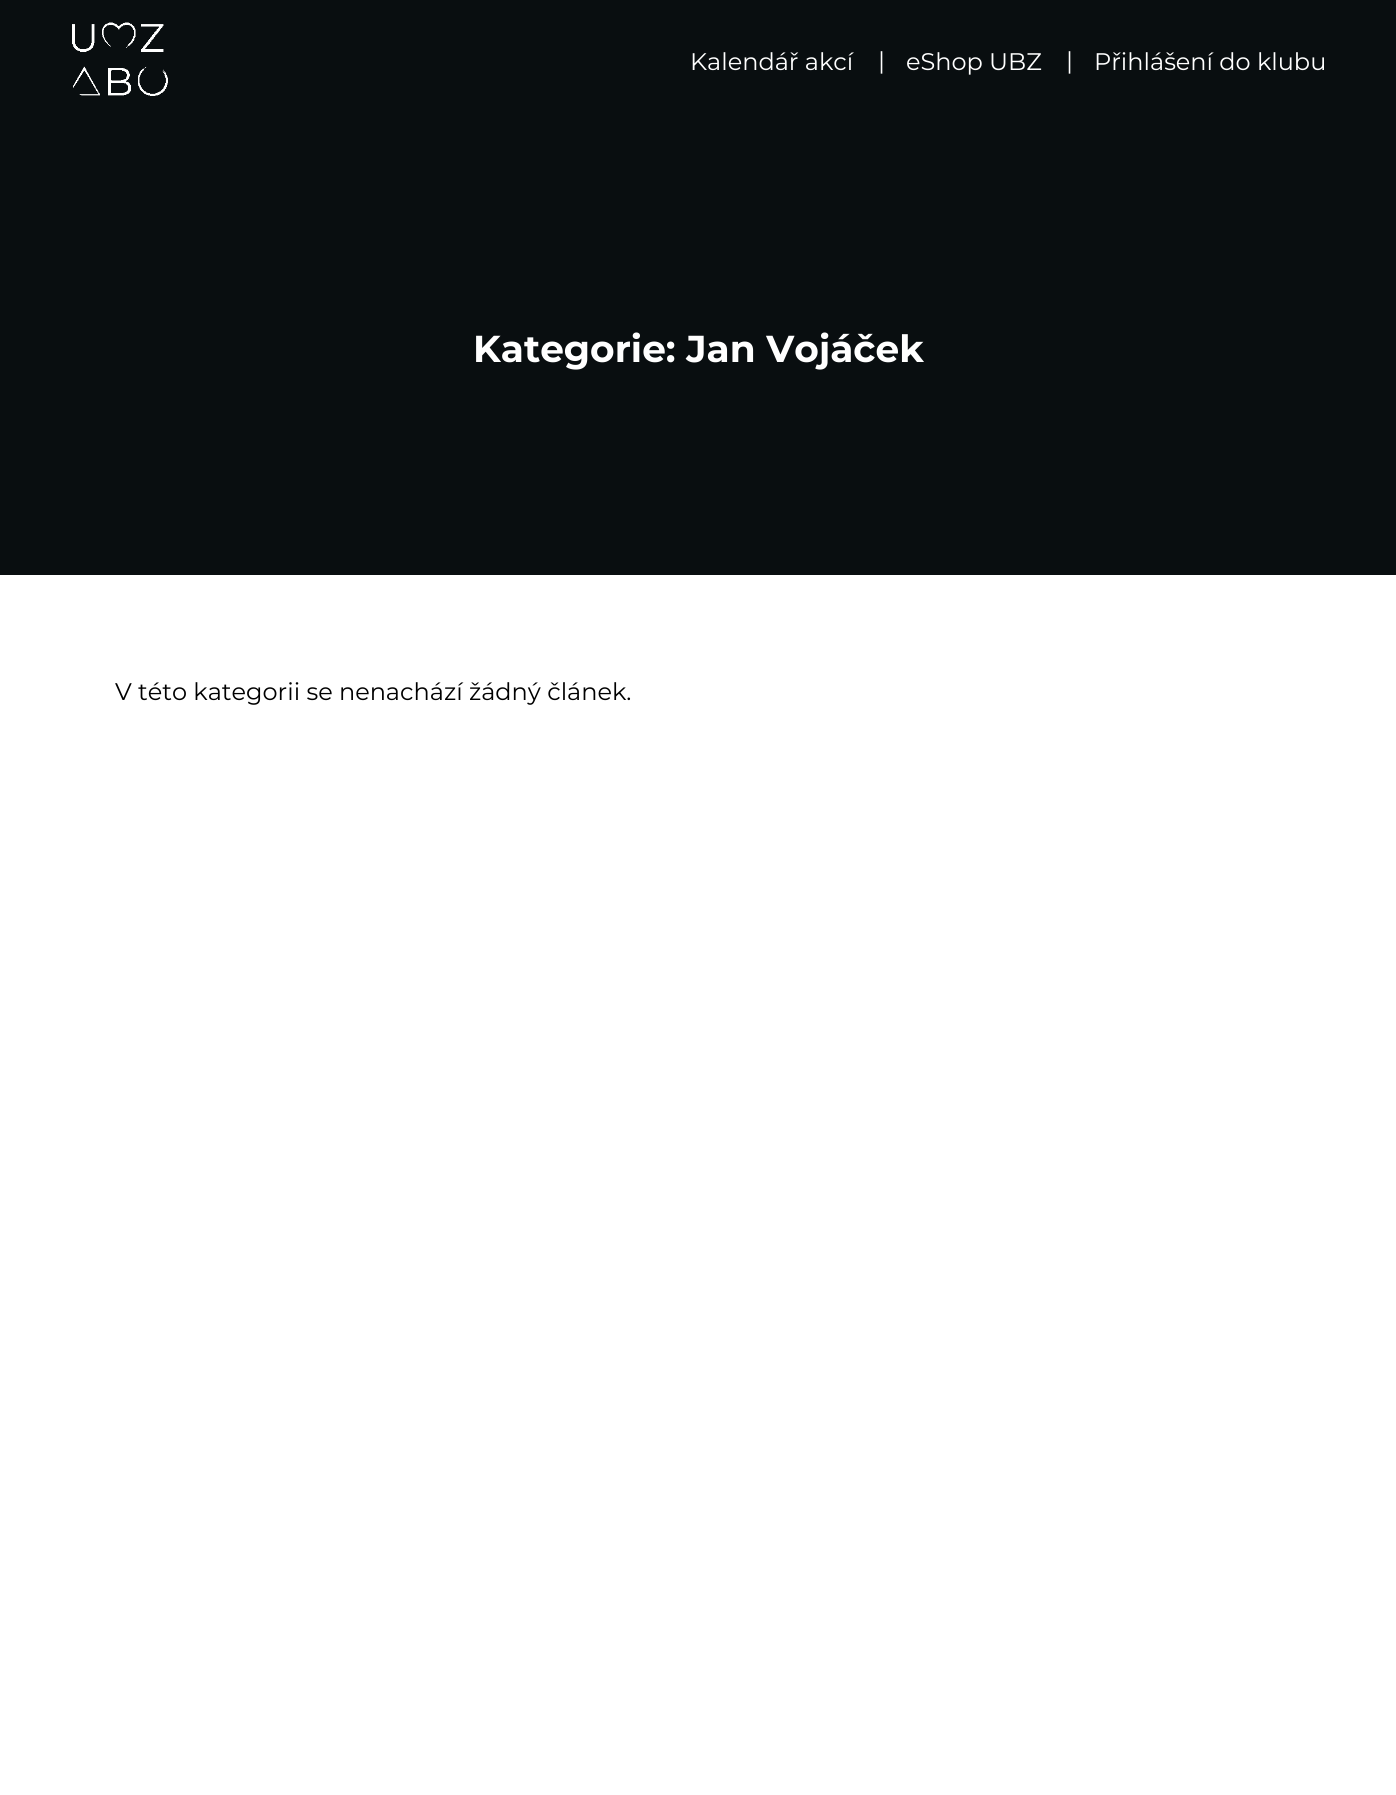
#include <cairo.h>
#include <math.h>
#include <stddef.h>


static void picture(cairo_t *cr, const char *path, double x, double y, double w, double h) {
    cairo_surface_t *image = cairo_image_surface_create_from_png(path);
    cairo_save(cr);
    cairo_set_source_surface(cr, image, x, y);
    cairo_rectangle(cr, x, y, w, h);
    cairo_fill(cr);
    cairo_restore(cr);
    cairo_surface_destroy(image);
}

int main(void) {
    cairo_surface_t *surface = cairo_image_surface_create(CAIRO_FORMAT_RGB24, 1396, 1795);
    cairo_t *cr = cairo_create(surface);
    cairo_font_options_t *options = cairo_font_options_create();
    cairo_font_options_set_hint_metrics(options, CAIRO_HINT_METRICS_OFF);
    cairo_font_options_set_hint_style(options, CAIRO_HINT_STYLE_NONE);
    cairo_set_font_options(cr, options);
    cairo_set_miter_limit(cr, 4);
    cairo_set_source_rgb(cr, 1, 1, 1);
    cairo_paint(cr);
    cairo_set_source_rgb(cr, 0.039, 0.055, 0.063);
    cairo_rectangle(cr, 0, 0, 1396, 575);
    cairo_fill(cr);
    picture(cr, "img1.png", 72, 22, 96, 74);
    cairo_select_font_face(cr, "Montserrat", CAIRO_FONT_SLANT_NORMAL, CAIRO_FONT_WEIGHT_NORMAL);
    cairo_set_font_size(cr, 24);
    cairo_set_source_rgb(cr, 1, 1, 1);
    cairo_move_to(cr, 690, 70);
    cairo_show_text(cr, "Kalendář akcí");
    cairo_move_to(cr, 878, 69);
    cairo_show_text(cr, "|");
    cairo_move_to(cr, 906, 70);
    cairo_show_text(cr, "eShop UBZ");
    cairo_move_to(cr, 1066, 69);
    cairo_show_text(cr, "|");
    cairo_move_to(cr, 1094, 70);
    cairo_show_text(cr, "Přihlášení do klubu");
    cairo_select_font_face(cr, "Montserrat", CAIRO_FONT_SLANT_NORMAL, CAIRO_FONT_WEIGHT_BOLD);
    cairo_set_font_size(cr, 37.5);
    cairo_move_to(cr, 473, 362);
    cairo_show_text(cr, "Kategorie: Jan Vojáček");
    cairo_select_font_face(cr, "Montserrat", CAIRO_FONT_SLANT_NORMAL, CAIRO_FONT_WEIGHT_NORMAL);
    cairo_set_font_size(cr, 24);
    cairo_set_source_rgb(cr, 0, 0, 0);
    cairo_move_to(cr, 115, 700);
    cairo_show_text(cr, "V této kategorii se nenachází žádný článek.");
    cairo_surface_write_to_png(surface, "page.png");
    cairo_font_options_destroy(options);
    cairo_destroy(cr);
    cairo_surface_destroy(surface);
    return 0;
}
